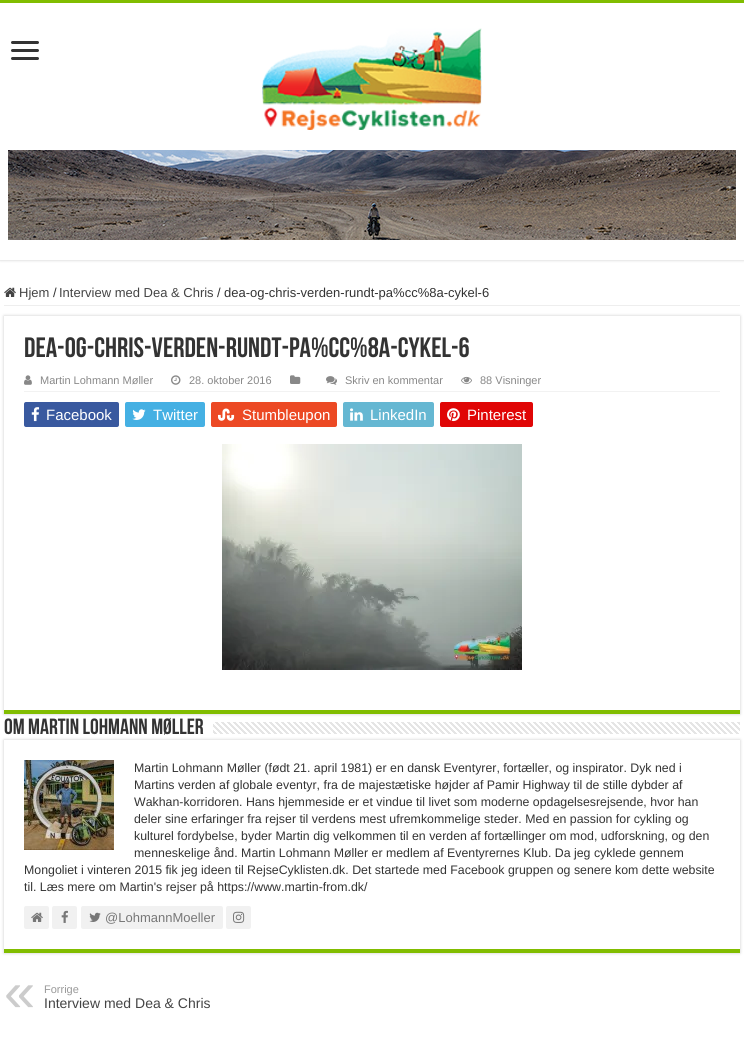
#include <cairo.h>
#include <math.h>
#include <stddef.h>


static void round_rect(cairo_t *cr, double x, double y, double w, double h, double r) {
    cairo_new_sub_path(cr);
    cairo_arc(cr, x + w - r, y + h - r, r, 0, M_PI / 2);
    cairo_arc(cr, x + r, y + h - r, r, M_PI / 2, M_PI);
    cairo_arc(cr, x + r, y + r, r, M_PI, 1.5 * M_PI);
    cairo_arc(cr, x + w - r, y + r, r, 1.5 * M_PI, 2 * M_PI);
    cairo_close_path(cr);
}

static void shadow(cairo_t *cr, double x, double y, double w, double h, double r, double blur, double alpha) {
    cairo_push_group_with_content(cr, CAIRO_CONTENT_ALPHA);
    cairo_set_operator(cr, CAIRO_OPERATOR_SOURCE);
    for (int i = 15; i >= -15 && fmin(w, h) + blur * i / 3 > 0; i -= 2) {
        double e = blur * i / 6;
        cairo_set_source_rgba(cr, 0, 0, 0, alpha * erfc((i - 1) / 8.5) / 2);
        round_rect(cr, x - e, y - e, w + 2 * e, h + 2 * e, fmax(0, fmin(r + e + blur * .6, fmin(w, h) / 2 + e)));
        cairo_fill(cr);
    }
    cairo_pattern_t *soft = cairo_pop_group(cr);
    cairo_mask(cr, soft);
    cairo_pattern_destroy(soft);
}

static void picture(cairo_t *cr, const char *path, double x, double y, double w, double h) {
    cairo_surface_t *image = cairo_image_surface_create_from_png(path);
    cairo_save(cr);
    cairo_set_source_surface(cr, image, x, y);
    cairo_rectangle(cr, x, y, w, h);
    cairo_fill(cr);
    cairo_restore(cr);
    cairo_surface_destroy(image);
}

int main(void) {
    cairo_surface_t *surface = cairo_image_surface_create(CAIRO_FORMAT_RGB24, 744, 1039);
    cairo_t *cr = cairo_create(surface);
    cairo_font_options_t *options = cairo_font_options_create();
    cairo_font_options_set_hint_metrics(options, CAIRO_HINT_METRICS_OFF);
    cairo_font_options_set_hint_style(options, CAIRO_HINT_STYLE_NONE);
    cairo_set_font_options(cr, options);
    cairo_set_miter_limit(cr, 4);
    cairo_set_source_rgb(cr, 1, 1, 1);
    cairo_paint(cr);
    cairo_save(cr);
    cairo_rectangle(cr, 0, 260, 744, 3);
    cairo_clip(cr);
    cairo_set_source_rgb(cr, 0.792, 0.792, 0.792);
    shadow(cr, 0, 0, 744, 260, 0, 1.5, 1);
    cairo_restore(cr);
    cairo_set_source_rgb(cr, 0.506, 0.741, 0);
    cairo_rectangle(cr, 0, 0, 744, 3);
    cairo_fill(cr);
    cairo_set_source_rgb(cr, 0.2, 0.2, 0.2);
    round_rect(cr, 11, 41, 28, 3, 1.5);
    cairo_fill(cr);
    round_rect(cr, 11, 49, 28, 3, 1.5);
    cairo_fill(cr);
    round_rect(cr, 11, 57, 28, 3, 1.5);
    cairo_fill(cr);
    picture(cr, "img1.png", 262, 28, 220, 102);
    picture(cr, "img2.png", 8, 150, 728, 90);
    cairo_set_source_rgb(cr, 0.933, 0.933, 0.933);
    cairo_rectangle(cr, 4, 305, 736, 1);
    cairo_fill(cr);
    picture(cr, "img3.png", 4, 287, 12, 10);
    cairo_select_font_face(cr, "Liberation Sans", CAIRO_FONT_SLANT_NORMAL, CAIRO_FONT_WEIGHT_NORMAL);
    cairo_set_font_size(cr, 13);
    cairo_set_source_rgb(cr, 0.267, 0.267, 0.267);
    cairo_move_to(cr, 19, 297);
    cairo_show_text(cr, "Hjem");
    cairo_set_source_rgb(cr, 0.2, 0.2, 0.2);
    cairo_move_to(cr, 53, 297);
    cairo_show_text(cr, "/");
    cairo_set_source_rgb(cr, 0.267, 0.267, 0.267);
    cairo_move_to(cr, 59, 297);
    cairo_show_text(cr, "Interview med Dea & Chris");
    cairo_set_source_rgb(cr, 0.2, 0.2, 0.2);
    cairo_move_to(cr, 217, 297);
    cairo_show_text(cr, "/");
    cairo_move_to(cr, 224, 297);
    cairo_show_text(cr, "dea-og-chris-verden-rundt-pa%cc%8a-cykel-6");
    cairo_save(cr);
    cairo_set_fill_rule(cr, CAIRO_FILL_RULE_EVEN_ODD);
    cairo_new_path(cr);
    cairo_move_to(cr, 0, 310);
    cairo_line_to(cr, 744, 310);
    cairo_line_to(cr, 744, 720);
    cairo_line_to(cr, 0, 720);
    cairo_close_path(cr);
    cairo_move_to(cr, 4, 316);
    cairo_line_to(cr, 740, 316);
    cairo_line_to(cr, 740, 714);
    cairo_line_to(cr, 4, 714);
    cairo_close_path(cr);
    cairo_clip(cr);
    cairo_set_source_rgb(cr, 0.792, 0.792, 0.792);
    shadow(cr, 4, 316, 736, 398, 0, 1.5, 1);
    cairo_restore(cr);
    cairo_set_source_rgb(cr, 0.506, 0.741, 0);
    cairo_rectangle(cr, 4, 710, 736, 4);
    cairo_fill(cr);
    cairo_select_font_face(cr, "Bebas Neue", CAIRO_FONT_SLANT_NORMAL, CAIRO_FONT_WEIGHT_BOLD);
    cairo_set_font_size(cr, 28);
    cairo_set_source_rgb(cr, 0.2, 0.2, 0.2);
    cairo_move_to(cr, 24, 357);
    cairo_show_text(cr, "dea-og-chris-verden-rundt-pa%cc%8a-cykel-6");
    cairo_set_source_rgb(cr, 0.949, 0.949, 0.949);
    cairo_rectangle(cr, 24, 391, 696, 1);
    cairo_fill(cr);
    picture(cr, "img4.png", 24, 375, 8, 10);
    cairo_select_font_face(cr, "Liberation Sans", CAIRO_FONT_SLANT_NORMAL, CAIRO_FONT_WEIGHT_NORMAL);
    cairo_set_font_size(cr, 11);
    cairo_set_source_rgb(cr, 0.533, 0.533, 0.533);
    cairo_move_to(cr, 40, 384);
    cairo_show_text(cr, "Martin Lohmann Møller");
    picture(cr, "img5.png", 171, 375, 10, 10);
    cairo_move_to(cr, 189, 384);
    cairo_show_text(cr, "28. oktober 2016");
    picture(cr, "img6.png", 290, 375, 11, 9);
    picture(cr, "img7.png", 326, 376, 11, 9);
    cairo_move_to(cr, 345, 384);
    cairo_show_text(cr, "Skriv en kommentar");
    picture(cr, "img8.png", 461, 376, 11, 8);
    cairo_move_to(cr, 480, 384);
    cairo_show_text(cr, "88 Visninger");
    cairo_set_source_rgb(cr, 0.224, 0.349, 0.624);
    round_rect(cr, 24, 402, 95, 25, 2);
    cairo_fill(cr);
    picture(cr, "img9.png", 31, 407, 9, 15);
    cairo_set_font_size(cr, 15);
    cairo_set_source_rgb(cr, 1, 1, 1);
    cairo_move_to(cr, 46, 420);
    cairo_show_text(cr, "Facebook");
    cairo_set_source_rgb(cr, 0.271, 0.69, 0.89);
    round_rect(cr, 125, 402, 80, 25, 2);
    cairo_fill(cr);
    picture(cr, "img10.png", 132, 409, 14, 11);
    cairo_set_source_rgb(cr, 1, 1, 1);
    cairo_move_to(cr, 153, 420);
    cairo_show_text(cr, "Twitter");
    cairo_set_source_rgb(cr, 0.922, 0.286, 0.141);
    round_rect(cr, 211, 402, 126, 25, 2);
    cairo_fill(cr);
    picture(cr, "img11.png", 218, 408, 17, 13);
    cairo_set_source_rgb(cr, 1, 1, 1);
    cairo_move_to(cr, 242, 420);
    cairo_show_text(cr, "Stumbleupon");
    cairo_set_source_rgb(cr, 0.396, 0.718, 0.824);
    round_rect(cr, 343, 402, 91, 25, 2);
    cairo_fill(cr);
    picture(cr, "img12.png", 350, 408, 13, 13);
    cairo_set_source_rgb(cr, 1, 1, 1);
    cairo_move_to(cr, 370, 420);
    cairo_show_text(cr, "LinkedIn");
    cairo_set_source_rgb(cr, 0.878, 0.027, 0.027);
    round_rect(cr, 440, 402, 93, 25, 2);
    cairo_fill(cr);
    picture(cr, "img13.png", 447, 408, 13, 14);
    cairo_set_source_rgb(cr, 1, 1, 1);
    cairo_move_to(cr, 467, 420);
    cairo_show_text(cr, "Pinterest");
    picture(cr, "img14.png", 222, 444, 300, 226);
    cairo_save(cr);
    cairo_set_fill_rule(cr, CAIRO_FILL_RULE_EVEN_ODD);
    cairo_new_path(cr);
    cairo_move_to(cr, 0, 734);
    cairo_line_to(cr, 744, 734);
    cairo_line_to(cr, 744, 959);
    cairo_line_to(cr, 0, 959);
    cairo_close_path(cr);
    cairo_move_to(cr, 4, 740);
    cairo_line_to(cr, 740, 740);
    cairo_line_to(cr, 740, 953);
    cairo_line_to(cr, 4, 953);
    cairo_close_path(cr);
    cairo_clip(cr);
    cairo_set_source_rgb(cr, 0.792, 0.792, 0.792);
    shadow(cr, 4, 740, 736, 213, 0, 1.5, 1);
    cairo_restore(cr);
    cairo_select_font_face(cr, "Bebas Neue", CAIRO_FONT_SLANT_NORMAL, CAIRO_FONT_WEIGHT_BOLD);
    cairo_set_font_size(cr, 22);
    cairo_set_source_rgb(cr, 0.2, 0.2, 0.2);
    cairo_move_to(cr, 4, 734);
    cairo_show_text(cr, "Om Martin Lohmann Møller");
    picture(cr, "img15.png", 213, 722, 527, 12);
    cairo_set_source_rgb(cr, 0.506, 0.741, 0);
    cairo_rectangle(cr, 4, 949, 736, 4);
    cairo_fill(cr);
    picture(cr, "img16.png", 24, 760, 90, 90);
    cairo_select_font_face(cr, "Liberation Sans", CAIRO_FONT_SLANT_NORMAL, CAIRO_FONT_WEIGHT_NORMAL);
    cairo_set_font_size(cr, 12.35);
    cairo_set_source_rgb(cr, 0.2, 0.2, 0.2);
    cairo_move_to(cr, 134, 772);
    cairo_show_text(cr, "Martin Lohmann Møller (født 21. april 1981) er en dansk Eventyrer, fortæller, og inspirator. Dyk ned i");
    cairo_move_to(cr, 134, 789);
    cairo_show_text(cr, "Martins verden af globale eventyr, fra de majestætiske højder af Pamir Highway til de stille dybder af");
    cairo_move_to(cr, 134, 806);
    cairo_show_text(cr, "Wakhan-korridoren. Hans hjemmeside er et vindue til livet som moderne opdagelsesrejsende, hvor han");
    cairo_move_to(cr, 134, 823);
    cairo_show_text(cr, "deler sine erfaringer fra rejser til verdens mest ufremkommelige steder. Med en passion for cykling og");
    cairo_move_to(cr, 134, 840);
    cairo_show_text(cr, "kulturel fordybelse, byder Martin dig velkommen til en verden af fortællinger om mod, udforskning, og den");
    cairo_move_to(cr, 134, 857);
    cairo_show_text(cr, "menneskelige ånd. Martin Lohmann Møller er medlem af Eventyrernes Klub. Da jeg cyklede gennem");
    cairo_move_to(cr, 24, 874);
    cairo_show_text(cr, "Mongoliet i vinteren 2015 fik jeg ideen til RejseCyklisten.dk. Det startede med Facebook gruppen og senere kom dette website");
    cairo_move_to(cr, 24, 891);
    cairo_show_text(cr, "til. Læs mere om Martin's rejser på https://www.martin-from.dk/");
    cairo_set_source_rgb(cr, 0.945, 0.945, 0.945);
    round_rect(cr, 24, 906, 25, 23, 2);
    cairo_fill(cr);
    picture(cr, "img17.png", 31, 912, 12, 10);
    round_rect(cr, 52, 906, 25, 23, 2);
    cairo_fill(cr);
    picture(cr, "img18.png", 61, 910, 7, 13);
    round_rect(cr, 81, 906, 142, 23, 2);
    cairo_fill(cr);
    picture(cr, "img19.png", 89, 912, 12, 10);
    cairo_set_font_size(cr, 13);
    cairo_set_source_rgb(cr, 0.467, 0.467, 0.467);
    cairo_move_to(cr, 105, 922);
    cairo_show_text(cr, "@LohmannMoeller");
    cairo_set_source_rgb(cr, 0.945, 0.945, 0.945);
    round_rect(cr, 226, 906, 25, 23, 2);
    cairo_fill(cr);
    picture(cr, "img20.png", 233, 911, 12, 12);
    cairo_set_font_size(cr, 56);
    cairo_set_source_rgb(cr, 0.8, 0.8, 0.8);
    cairo_move_to(cr, 4, 1011);
    cairo_show_text(cr, "«");
    cairo_set_font_size(cr, 11);
    cairo_set_source_rgb(cr, 0.6, 0.6, 0.6);
    cairo_move_to(cr, 44, 993);
    cairo_show_text(cr, "Forrige");
    cairo_set_font_size(cr, 14);
    cairo_set_source_rgb(cr, 0.267, 0.267, 0.267);
    cairo_move_to(cr, 44, 1008);
    cairo_show_text(cr, "Interview med Dea & Chris");
    cairo_surface_write_to_png(surface, "page.png");
    cairo_font_options_destroy(options);
    cairo_destroy(cr);
    cairo_surface_destroy(surface);
    return 0;
}
